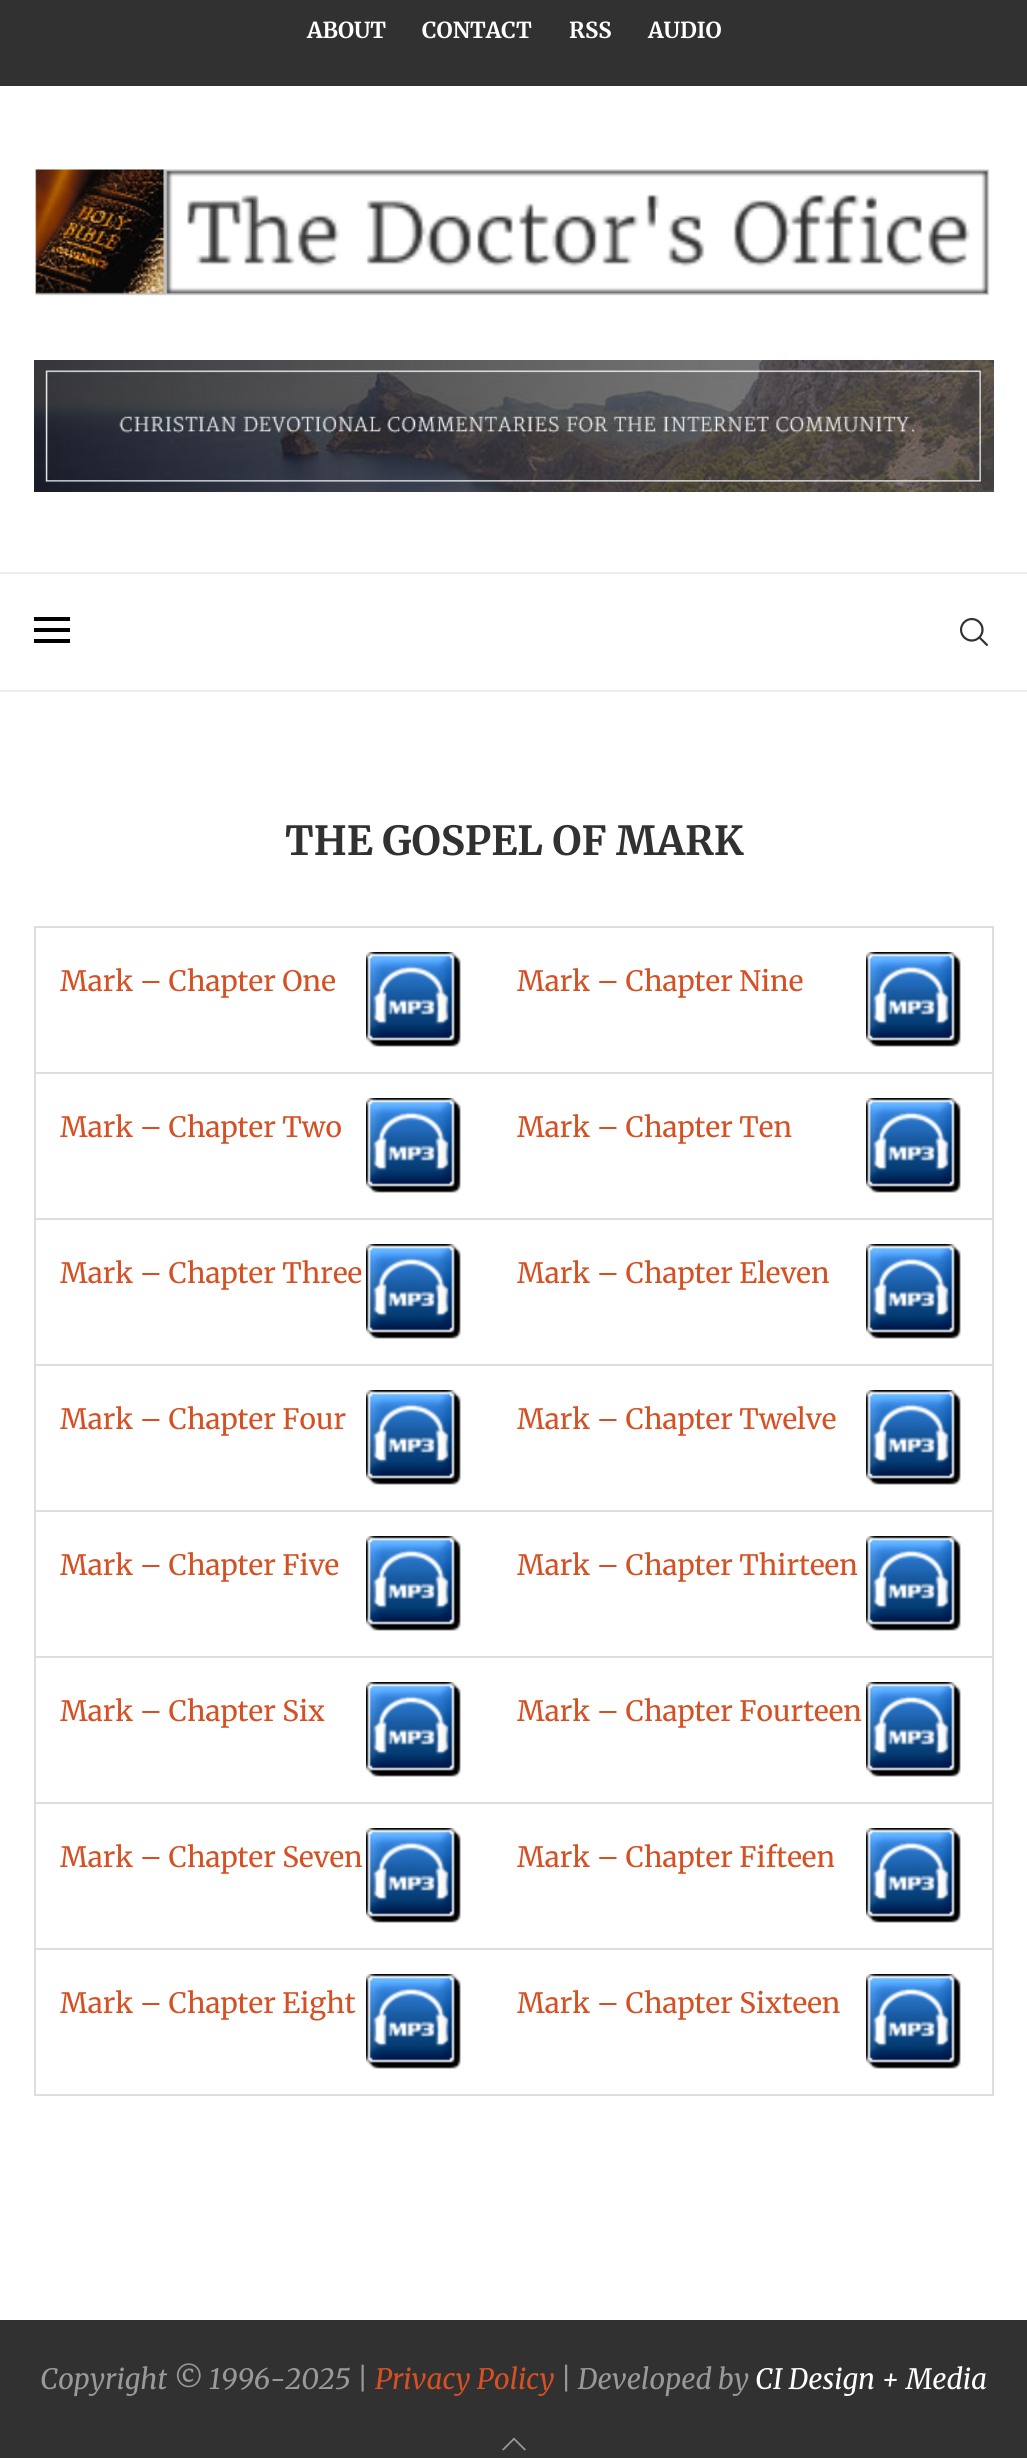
#include <cairo.h>
#include <math.h>
#include <stddef.h>


static void picture(cairo_t *cr, const char *path, double x, double y, double w, double h) {
    cairo_surface_t *image = cairo_image_surface_create_from_png(path);
    cairo_save(cr);
    cairo_set_source_surface(cr, image, x, y);
    cairo_rectangle(cr, x, y, w, h);
    cairo_fill(cr);
    cairo_restore(cr);
    cairo_surface_destroy(image);
}

int main(void) {
    cairo_surface_t *surface = cairo_image_surface_create(CAIRO_FORMAT_RGB24, 1027, 2458);
    cairo_t *cr = cairo_create(surface);
    cairo_font_options_t *options = cairo_font_options_create();
    cairo_font_options_set_hint_metrics(options, CAIRO_HINT_METRICS_OFF);
    cairo_font_options_set_hint_style(options, CAIRO_HINT_STYLE_NONE);
    cairo_set_font_options(cr, options);
    cairo_set_miter_limit(cr, 4);
    cairo_set_source_rgb(cr, 1, 1, 1);
    cairo_paint(cr);
    cairo_set_source_rgb(cr, 0.192, 0.192, 0.192);
    cairo_rectangle(cr, 0, 0, 1027, 86);
    cairo_fill(cr);
    cairo_select_font_face(cr, "Merriweather", CAIRO_FONT_SLANT_NORMAL, CAIRO_FONT_WEIGHT_BOLD);
    cairo_set_font_size(cr, 22);
    cairo_set_source_rgb(cr, 1, 1, 1);
    cairo_move_to(cr, 307, 38);
    cairo_show_text(cr, "ABOUT");
    cairo_move_to(cr, 422, 38);
    cairo_show_text(cr, "CONTACT");
    cairo_move_to(cr, 569, 38);
    cairo_show_text(cr, "RSS");
    cairo_move_to(cr, 648, 38);
    cairo_show_text(cr, "AUDIO");
    picture(cr, "img1.png", 35, 169, 955, 127);
    picture(cr, "img2.png", 34, 360, 960, 132);
    cairo_set_source_rgb(cr, 0.925, 0.925, 0.925);
    cairo_rectangle(cr, 0, 572, 1027, 2);
    cairo_fill(cr);
    cairo_rectangle(cr, 0, 690, 1027, 2);
    cairo_fill(cr);
    cairo_set_source_rgb(cr, 0, 0, 0);
    cairo_rectangle(cr, 34, 617, 36, 4);
    cairo_fill(cr);
    cairo_rectangle(cr, 34, 628, 36, 4);
    cairo_fill(cr);
    cairo_rectangle(cr, 34, 639, 36, 4);
    cairo_fill(cr);
    picture(cr, "img3.png", 960, 618, 28, 28);
    cairo_set_font_size(cr, 40);
    cairo_set_source_rgb(cr, 0.192, 0.192, 0.192);
    cairo_move_to(cr, 285, 855);
    cairo_show_text(cr, "THE GOSPEL OF MARK");
    cairo_set_source_rgb(cr, 0.871, 0.871, 0.871);
    cairo_rectangle(cr, 34, 926, 960, 2);
    cairo_fill(cr);
    cairo_rectangle(cr, 992, 926, 2, 1170);
    cairo_fill(cr);
    cairo_rectangle(cr, 34, 926, 2, 1170);
    cairo_fill(cr);
    cairo_select_font_face(cr, "Merriweather", CAIRO_FONT_SLANT_NORMAL, CAIRO_FONT_WEIGHT_NORMAL);
    cairo_set_font_size(cr, 28);
    cairo_set_source_rgb(cr, 0.835, 0.314, 0.137);
    cairo_move_to(cr, 60, 991);
    cairo_show_text(cr, "Mark – Chapter One");
    picture(cr, "img4.png", 366, 952, 95, 95);
    cairo_set_source_rgb(cr, 0.871, 0.871, 0.871);
    cairo_rectangle(cr, 34, 1072, 960, 2);
    cairo_fill(cr);
    cairo_set_source_rgb(cr, 0.835, 0.314, 0.137);
    cairo_move_to(cr, 517, 991);
    cairo_show_text(cr, "Mark – Chapter Nine");
    picture(cr, "img4.png", 866, 952, 95, 95);
    cairo_move_to(cr, 60, 1137);
    cairo_show_text(cr, "Mark – Chapter Two");
    picture(cr, "img4.png", 366, 1098, 95, 95);
    cairo_set_source_rgb(cr, 0.871, 0.871, 0.871);
    cairo_rectangle(cr, 34, 1218, 960, 2);
    cairo_fill(cr);
    cairo_set_source_rgb(cr, 0.835, 0.314, 0.137);
    cairo_move_to(cr, 517, 1137);
    cairo_show_text(cr, "Mark – Chapter Ten");
    picture(cr, "img4.png", 866, 1098, 95, 95);
    cairo_move_to(cr, 60, 1283);
    cairo_show_text(cr, "Mark – Chapter Three");
    picture(cr, "img4.png", 366, 1244, 95, 95);
    cairo_set_source_rgb(cr, 0.871, 0.871, 0.871);
    cairo_rectangle(cr, 34, 1364, 960, 2);
    cairo_fill(cr);
    cairo_set_source_rgb(cr, 0.835, 0.314, 0.137);
    cairo_move_to(cr, 517, 1283);
    cairo_show_text(cr, "Mark – Chapter Eleven");
    picture(cr, "img4.png", 866, 1244, 95, 95);
    cairo_move_to(cr, 60, 1429);
    cairo_show_text(cr, "Mark – Chapter Four");
    picture(cr, "img4.png", 366, 1390, 95, 95);
    cairo_set_source_rgb(cr, 0.871, 0.871, 0.871);
    cairo_rectangle(cr, 34, 1510, 960, 2);
    cairo_fill(cr);
    cairo_set_source_rgb(cr, 0.835, 0.314, 0.137);
    cairo_move_to(cr, 517, 1429);
    cairo_show_text(cr, "Mark – Chapter Twelve");
    picture(cr, "img4.png", 866, 1390, 95, 95);
    cairo_move_to(cr, 60, 1575);
    cairo_show_text(cr, "Mark – Chapter Five");
    picture(cr, "img4.png", 366, 1536, 95, 95);
    cairo_set_source_rgb(cr, 0.871, 0.871, 0.871);
    cairo_rectangle(cr, 34, 1656, 960, 2);
    cairo_fill(cr);
    cairo_set_source_rgb(cr, 0.835, 0.314, 0.137);
    cairo_move_to(cr, 517, 1575);
    cairo_show_text(cr, "Mark – Chapter Thirteen");
    picture(cr, "img4.png", 866, 1536, 95, 95);
    cairo_move_to(cr, 60, 1721);
    cairo_show_text(cr, "Mark – Chapter Six");
    picture(cr, "img4.png", 366, 1682, 95, 95);
    cairo_set_source_rgb(cr, 0.871, 0.871, 0.871);
    cairo_rectangle(cr, 34, 1802, 960, 2);
    cairo_fill(cr);
    cairo_set_source_rgb(cr, 0.835, 0.314, 0.137);
    cairo_move_to(cr, 517, 1721);
    cairo_show_text(cr, "Mark – Chapter Fourteen");
    picture(cr, "img4.png", 866, 1682, 95, 95);
    cairo_move_to(cr, 60, 1867);
    cairo_show_text(cr, "Mark – Chapter Seven");
    picture(cr, "img4.png", 366, 1828, 95, 95);
    cairo_set_source_rgb(cr, 0.871, 0.871, 0.871);
    cairo_rectangle(cr, 34, 1948, 960, 2);
    cairo_fill(cr);
    cairo_set_source_rgb(cr, 0.835, 0.314, 0.137);
    cairo_move_to(cr, 517, 1867);
    cairo_show_text(cr, "Mark – Chapter Fifteen");
    picture(cr, "img4.png", 866, 1828, 95, 95);
    cairo_move_to(cr, 60, 2013);
    cairo_show_text(cr, "Mark – Chapter Eight");
    picture(cr, "img4.png", 366, 1974, 95, 95);
    cairo_set_source_rgb(cr, 0.871, 0.871, 0.871);
    cairo_rectangle(cr, 34, 2094, 960, 2);
    cairo_fill(cr);
    cairo_set_source_rgb(cr, 0.835, 0.314, 0.137);
    cairo_move_to(cr, 517, 2013);
    cairo_show_text(cr, "Mark – Chapter Sixteen");
    picture(cr, "img4.png", 866, 1974, 95, 95);
    cairo_set_source_rgb(cr, 0.192, 0.192, 0.192);
    cairo_rectangle(cr, 0, 2320, 1027, 138);
    cairo_fill(cr);
    cairo_select_font_face(cr, "Merriweather", CAIRO_FONT_SLANT_ITALIC, CAIRO_FONT_WEIGHT_NORMAL);
    cairo_set_source_rgb(cr, 0.6, 0.6, 0.6);
    cairo_move_to(cr, 40, 2389);
    cairo_show_text(cr, "Copyright © 1996-2025 |");
    cairo_set_source_rgb(cr, 0.835, 0.314, 0.137);
    cairo_move_to(cr, 375, 2389);
    cairo_show_text(cr, "Privacy Policy");
    cairo_set_source_rgb(cr, 0.6, 0.6, 0.6);
    cairo_move_to(cr, 560, 2389);
    cairo_show_text(cr, "| Developed by");
    cairo_set_source_rgb(cr, 1, 1, 1);
    cairo_move_to(cr, 755, 2389);
    cairo_show_text(cr, "CI Design + Media");
    cairo_set_source_rgb(cr, 0.6, 0.6, 0.6);
    cairo_new_path(cr);
    cairo_move_to(cr, 514, 2437.5);
    cairo_line_to(cr, 502, 2449.5);
    cairo_line_to(cr, 503.5, 2450.5);
    cairo_line_to(cr, 514, 2440);
    cairo_line_to(cr, 524.5, 2450.5);
    cairo_line_to(cr, 526, 2449.5);
    cairo_close_path(cr);
    cairo_fill(cr);
    cairo_surface_write_to_png(surface, "page.png");
    cairo_font_options_destroy(options);
    cairo_destroy(cr);
    cairo_surface_destroy(surface);
    return 0;
}
